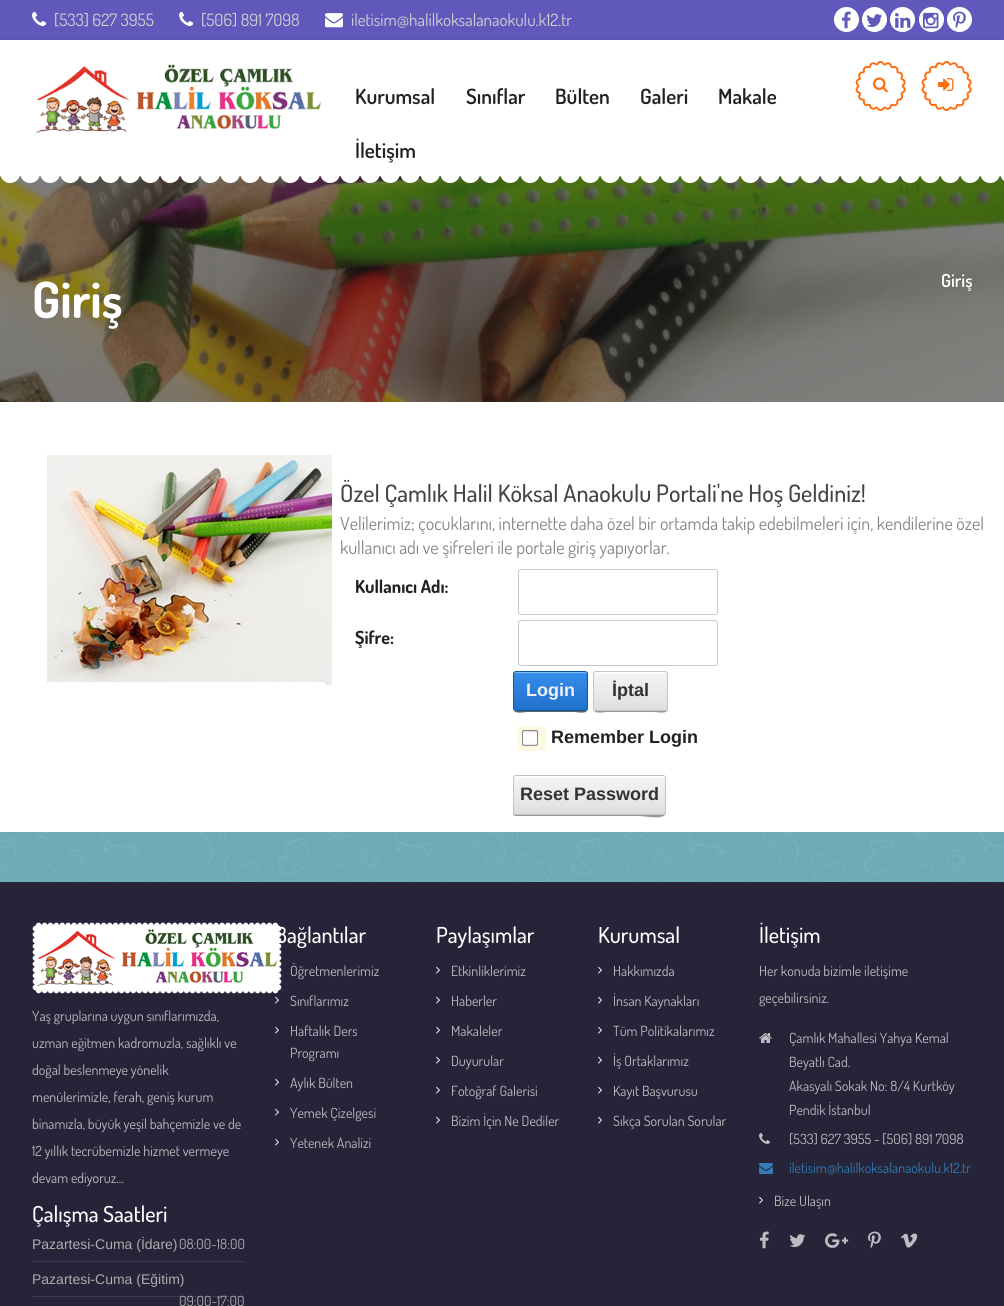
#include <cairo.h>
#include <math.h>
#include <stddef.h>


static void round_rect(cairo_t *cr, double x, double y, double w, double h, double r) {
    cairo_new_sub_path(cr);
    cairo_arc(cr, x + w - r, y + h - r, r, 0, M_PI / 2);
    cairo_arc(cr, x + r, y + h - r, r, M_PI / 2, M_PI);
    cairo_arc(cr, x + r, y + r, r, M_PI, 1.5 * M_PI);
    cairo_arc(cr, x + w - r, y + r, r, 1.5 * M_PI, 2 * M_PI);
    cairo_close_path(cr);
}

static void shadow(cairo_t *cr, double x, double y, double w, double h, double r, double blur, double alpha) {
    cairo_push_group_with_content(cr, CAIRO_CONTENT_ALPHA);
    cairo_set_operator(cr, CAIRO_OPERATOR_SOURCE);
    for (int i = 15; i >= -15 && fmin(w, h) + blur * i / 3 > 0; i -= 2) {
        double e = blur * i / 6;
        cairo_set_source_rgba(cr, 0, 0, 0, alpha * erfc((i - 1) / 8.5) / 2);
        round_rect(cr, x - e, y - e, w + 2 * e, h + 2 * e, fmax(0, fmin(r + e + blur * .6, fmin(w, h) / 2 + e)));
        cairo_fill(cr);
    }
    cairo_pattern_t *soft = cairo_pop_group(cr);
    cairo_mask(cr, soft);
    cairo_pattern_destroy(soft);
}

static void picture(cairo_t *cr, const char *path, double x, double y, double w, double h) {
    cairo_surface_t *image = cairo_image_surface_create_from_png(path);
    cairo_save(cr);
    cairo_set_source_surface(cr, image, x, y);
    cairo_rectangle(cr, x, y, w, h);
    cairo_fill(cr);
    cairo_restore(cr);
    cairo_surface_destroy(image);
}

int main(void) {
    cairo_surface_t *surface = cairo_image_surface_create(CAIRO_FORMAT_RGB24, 1004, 1306);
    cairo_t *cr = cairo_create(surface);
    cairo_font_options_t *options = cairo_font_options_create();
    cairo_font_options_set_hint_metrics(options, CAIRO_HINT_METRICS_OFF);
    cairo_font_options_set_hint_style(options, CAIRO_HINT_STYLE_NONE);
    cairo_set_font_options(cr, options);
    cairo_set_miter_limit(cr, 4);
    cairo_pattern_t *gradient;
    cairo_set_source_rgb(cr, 1, 1, 1);
    cairo_paint(cr);
    cairo_set_source_rgb(cr, 0.376, 0.349, 0.733);
    cairo_rectangle(cr, 0, 0, 1004, 40);
    cairo_fill(cr);
    picture(cr, "img1.png", 32, 11, 15, 15);
    cairo_select_font_face(cr, "Dosis", CAIRO_FONT_SLANT_NORMAL, CAIRO_FONT_WEIGHT_NORMAL);
    cairo_set_font_size(cr, 17);
    cairo_set_source_rgb(cr, 0.82, 0.82, 0.82);
    cairo_move_to(cr, 54, 26);
    cairo_show_text(cr, "[533] 627 3955");
    picture(cr, "img1.png", 179, 11, 15, 15);
    cairo_move_to(cr, 201, 26);
    cairo_show_text(cr, "[506] 891 7098");
    picture(cr, "img2.png", 325, 13, 18, 15);
    cairo_move_to(cr, 351, 26);
    cairo_show_text(cr, "iletisim@halilkoksalanaokulu.k12.tr");
    cairo_set_source_rgb(cr, 1, 1, 1);
    cairo_new_path(cr);
    cairo_arc(cr, 846.5, 19.5, 12, 0, 2 * M_PI);
    cairo_fill_preserve(cr);
    cairo_set_line_width(cr, 1);
    cairo_stroke(cr);
    picture(cr, "img3.png", 841, 11, 10, 18);
    cairo_arc(cr, 874.5, 19.5, 12, 0, 2 * M_PI);
    cairo_fill_preserve(cr);
    cairo_stroke(cr);
    picture(cr, "img4.png", 866, 14, 17, 13);
    cairo_arc(cr, 902.5, 19.5, 12, 0, 2 * M_PI);
    cairo_fill_preserve(cr);
    cairo_stroke(cr);
    picture(cr, "img5.png", 895, 13, 16, 15);
    cairo_arc(cr, 931.5, 19.5, 12, 0, 2 * M_PI);
    cairo_fill_preserve(cr);
    cairo_stroke(cr);
    picture(cr, "img6.png", 923, 12, 16, 17);
    cairo_arc(cr, 959.5, 19.5, 12, 0, 2 * M_PI);
    cairo_fill_preserve(cr);
    cairo_stroke(cr);
    picture(cr, "img7.png", 953, 11, 13, 18);
    cairo_save(cr);
    cairo_rectangle(cr, 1, 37, 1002, 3);
    cairo_clip(cr);
    cairo_set_source_rgb(cr, 0, 0, 0);
    shadow(cr, 0, 42, 1004, 136, 0, 5, 0.12);
    cairo_restore(cr);
    cairo_save(cr);
    cairo_rectangle(cr, 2, 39, 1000, 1);
    cairo_clip(cr);
    cairo_set_source_rgb(cr, 0, 0, 0);
    shadow(cr, 0, 42, 1004, 136, 0, 2.5, 0.16);
    cairo_restore(cr);
    picture(cr, "img8.png", 36, 64, 286, 69);
    cairo_select_font_face(cr, "Dosis SemiBold", CAIRO_FONT_SLANT_NORMAL, CAIRO_FONT_WEIGHT_NORMAL);
    cairo_set_font_size(cr, 21);
    cairo_set_source_rgb(cr, 0.133, 0.133, 0.133);
    cairo_move_to(cr, 355, 104);
    cairo_show_text(cr, "Kurumsal");
    cairo_move_to(cr, 466, 104);
    cairo_show_text(cr, "Sınıflar");
    cairo_move_to(cr, 555, 104);
    cairo_show_text(cr, "Bülten");
    cairo_move_to(cr, 640, 104);
    cairo_show_text(cr, "Galeri");
    cairo_move_to(cr, 718, 104);
    cairo_show_text(cr, "Makale");
    cairo_move_to(cr, 355, 158);
    cairo_show_text(cr, "İletişim");
    picture(cr, "img9.png", 855, 61, 51, 50);
    picture(cr, "img10.png", 873, 77, 15, 16);
    picture(cr, "img9.png", 921, 61, 51, 50);
    picture(cr, "img11.png", 938, 78, 16, 13);
    picture(cr, "img13.png", 0, 176, 1004, 228);
    picture(cr, "img12.png", 0, 176, 1004, 7);
    cairo_select_font_face(cr, "Dosis", CAIRO_FONT_SLANT_NORMAL, CAIRO_FONT_WEIGHT_BOLD);
    cairo_set_font_size(cr, 50);
    cairo_set_source_rgb(cr, 1, 1, 1);
    cairo_move_to(cr, 32, 318);
    cairo_show_text(cr, "Giriş");
    cairo_select_font_face(cr, "Dosis SemiBold", CAIRO_FONT_SLANT_NORMAL, CAIRO_FONT_WEIGHT_NORMAL);
    cairo_set_font_size(cr, 18);
    cairo_move_to(cr, 941, 287);
    cairo_show_text(cr, "Giriş");
    picture(cr, "img14.png", 0, 402, 1004, 2);
    picture(cr, "img15.png", 0, 402, 1001, 2);
    picture(cr, "img16.png", 47, 455, 285, 230);
    picture(cr, "img17.png", 47, 682, 278, 3);
    cairo_select_font_face(cr, "Dosis Medium", CAIRO_FONT_SLANT_NORMAL, CAIRO_FONT_WEIGHT_NORMAL);
    cairo_set_font_size(cr, 24);
    cairo_set_source_rgb(cr, 0.267, 0.267, 0.267);
    cairo_move_to(cr, 340, 502);
    cairo_show_text(cr, "Özel Çamlık Halil Köksal Anaokulu Portali'ne Hoş Geldiniz!");
    cairo_select_font_face(cr, "Dosis", CAIRO_FONT_SLANT_NORMAL, CAIRO_FONT_WEIGHT_NORMAL);
    cairo_set_font_size(cr, 18);
    cairo_set_source_rgb(cr, 0.518, 0.518, 0.518);
    cairo_move_to(cr, 340, 530);
    cairo_show_text(cr, "Velilerimiz; çocuklarını, internette daha özel bir ortamda takip edebilmeleri için, kendilerine özel");
    cairo_move_to(cr, 340, 554);
    cairo_show_text(cr, "kullanıcı adı ve şifreleri ile portale giriş yapıyorlar.");
    cairo_select_font_face(cr, "Dosis", CAIRO_FONT_SLANT_NORMAL, CAIRO_FONT_WEIGHT_BOLD);
    cairo_set_source_rgb(cr, 0.133, 0.133, 0.133);
    cairo_move_to(cr, 355, 593);
    cairo_show_text(cr, "Kullanıcı Adı:");
    round_rect(cr, 518.5, 569.5, 199, 45, 2.5);
    cairo_set_source_rgb(cr, 0.788, 0.788, 0.788);
    cairo_stroke(cr);
    cairo_set_source_rgb(cr, 0.133, 0.133, 0.133);
    cairo_move_to(cr, 355, 644);
    cairo_show_text(cr, "Şifre:");
    round_rect(cr, 518.5, 620.5, 199, 45, 2.5);
    cairo_set_source_rgb(cr, 0.788, 0.788, 0.788);
    cairo_stroke(cr);
    cairo_set_source_rgb(cr, 0.4, 0.4, 0.4);
    cairo_new_path(cr);
    cairo_move_to(cr, 513, 708);
    cairo_curve_to(cr, 513, 715, 523, 712, 528, 712);
    cairo_line_to(cr, 574, 712);
    cairo_curve_to(cr, 578, 712, 588, 715, 588, 708);
    cairo_curve_to(cr, 588, 710, 587, 711, 585, 711);
    cairo_line_to(cr, 516, 711);
    cairo_curve_to(cr, 514, 711, 513, 710, 513, 708);
    cairo_close_path(cr);
    cairo_fill(cr);
    cairo_save(cr);
    round_rect(cr, 513, 671, 75, 40, 3);
    cairo_clip(cr);
    gradient = cairo_pattern_create_linear(551, 672, 551, 710);
    cairo_pattern_add_color_stop_rgba(gradient, 0, 0.208, 0.557, 0.918, 1);
    cairo_pattern_add_color_stop_rgba(gradient, 1, 0.129, 0.439, 0.804, 1);
    cairo_set_source(cr, gradient);
    cairo_pattern_destroy(gradient);
    cairo_rectangle(cr, 513, 672, 75, 38);
    cairo_fill(cr);
    cairo_restore(cr);
    cairo_set_source_rgba(cr, 1, 1, 1, 0.4);
    cairo_new_path(cr);
    cairo_move_to(cr, 516, 673);
    cairo_line_to(cr, 585, 673);
    cairo_curve_to(cr, 586, 673, 587, 674, 587, 675);
    cairo_curve_to(cr, 587, 669, 577, 672, 574, 672);
    cairo_line_to(cr, 528, 672);
    cairo_curve_to(cr, 524, 672, 514, 669, 514, 675);
    cairo_curve_to(cr, 514, 674, 515, 673, 516, 673);
    cairo_close_path(cr);
    cairo_fill(cr);
    round_rect(cr, 513.5, 671.5, 74, 39, 2.5);
    cairo_set_source_rgb(cr, 0.051, 0.337, 0.62);
    cairo_stroke(cr);
    cairo_select_font_face(cr, "Liberation Sans", CAIRO_FONT_SLANT_NORMAL, CAIRO_FONT_WEIGHT_BOLD);
    cairo_set_source_rgb(cr, 0.937, 0.937, 0.937);
    cairo_move_to(cr, 526, 696);
    cairo_show_text(cr, "Login");
    cairo_set_source_rgb(cr, 0.6, 0.6, 0.6);
    cairo_new_path(cr);
    cairo_move_to(cr, 593, 708);
    cairo_curve_to(cr, 593, 715, 603, 712, 608, 712);
    cairo_line_to(cr, 654, 712);
    cairo_curve_to(cr, 658, 712, 668, 715, 668, 708);
    cairo_curve_to(cr, 668, 710, 667, 711, 665, 711);
    cairo_line_to(cr, 596, 711);
    cairo_curve_to(cr, 594, 711, 593, 710, 593, 708);
    cairo_close_path(cr);
    cairo_fill(cr);
    cairo_save(cr);
    round_rect(cr, 593, 671, 75, 40, 3);
    cairo_clip(cr);
    gradient = cairo_pattern_create_linear(631, 672, 631, 710);
    cairo_pattern_add_color_stop_rgba(gradient, 0, 0.961, 0.961, 0.961, 1);
    cairo_pattern_add_color_stop_rgba(gradient, 1, 0.875, 0.875, 0.875, 1);
    cairo_set_source(cr, gradient);
    cairo_pattern_destroy(gradient);
    cairo_rectangle(cr, 593, 672, 75, 38);
    cairo_fill(cr);
    cairo_restore(cr);
    cairo_set_source_rgb(cr, 1, 1, 1);
    cairo_new_path(cr);
    cairo_move_to(cr, 596, 673);
    cairo_line_to(cr, 665, 673);
    cairo_curve_to(cr, 666, 673, 667, 674, 667, 675);
    cairo_curve_to(cr, 667, 669, 657, 672, 654, 672);
    cairo_line_to(cr, 608, 672);
    cairo_curve_to(cr, 604, 672, 594, 669, 594, 675);
    cairo_curve_to(cr, 594, 674, 595, 673, 596, 673);
    cairo_close_path(cr);
    cairo_fill(cr);
    round_rect(cr, 593.5, 671.5, 74, 39, 2.5);
    cairo_set_source_rgb(cr, 0.761, 0.761, 0.761);
    cairo_stroke(cr);
    cairo_set_source_rgb(cr, 0.2, 0.2, 0.2);
    cairo_move_to(cr, 612, 696);
    cairo_show_text(cr, "İptal");
    cairo_set_source_rgb(cr, 0.988, 0.973, 0.89);
    cairo_rectangle(cr, 518, 726, 28, 25);
    cairo_fill(cr);
    picture(cr, "img18.png", 522, 730, 16, 16);
    cairo_set_source_rgb(cr, 0.133, 0.133, 0.133);
    cairo_move_to(cr, 551, 743);
    cairo_show_text(cr, "Remember Login");
    cairo_set_source_rgb(cr, 0.6, 0.6, 0.6);
    cairo_new_path(cr);
    cairo_move_to(cr, 513, 812);
    cairo_curve_to(cr, 513, 814, 513, 815, 515, 816);
    cairo_line_to(cr, 638, 816);
    cairo_curve_to(cr, 646, 816, 666, 821, 666, 812);
    cairo_line_to(cr, 665, 814);
    cairo_line_to(cr, 663, 815);
    cairo_line_to(cr, 516, 815);
    cairo_curve_to(cr, 514, 815, 513, 814, 513, 812);
    cairo_close_path(cr);
    cairo_fill(cr);
    cairo_save(cr);
    round_rect(cr, 513, 775, 153, 40, 3);
    cairo_clip(cr);
    gradient = cairo_pattern_create_linear(590, 776, 590, 814);
    cairo_pattern_add_color_stop_rgba(gradient, 0, 0.961, 0.961, 0.961, 1);
    cairo_pattern_add_color_stop_rgba(gradient, 1, 0.875, 0.875, 0.875, 1);
    cairo_set_source(cr, gradient);
    cairo_pattern_destroy(gradient);
    cairo_rectangle(cr, 513, 776, 153, 38);
    cairo_fill(cr);
    cairo_restore(cr);
    cairo_set_source_rgb(cr, 1, 1, 1);
    cairo_new_path(cr);
    cairo_move_to(cr, 516, 777);
    cairo_line_to(cr, 663, 777);
    cairo_curve_to(cr, 664, 777, 665, 778, 665, 779);
    cairo_curve_to(cr, 665, 778, 665, 777, 664, 776);
    cairo_line_to(cr, 540, 776);
    cairo_curve_to(cr, 538, 776, 514, 770, 514, 779);
    cairo_curve_to(cr, 514, 778, 515, 777, 516, 777);
    cairo_close_path(cr);
    cairo_fill(cr);
    round_rect(cr, 513.5, 775.5, 152, 39, 2.5);
    cairo_set_source_rgb(cr, 0.761, 0.761, 0.761);
    cairo_stroke(cr);
    cairo_set_source_rgb(cr, 0.2, 0.2, 0.2);
    cairo_move_to(cr, 520, 800);
    cairo_show_text(cr, "Reset Password");
    picture(cr, "img19.png", 0, 832, 1004, 50);
    cairo_set_source_rgb(cr, 0.145, 0.141, 0.22);
    cairo_rectangle(cr, 0, 882, 1004, 424);
    cairo_fill(cr);
    picture(cr, "img20.png", 32, 922, 250, 72);
    cairo_select_font_face(cr, "Dosis", CAIRO_FONT_SLANT_NORMAL, CAIRO_FONT_WEIGHT_NORMAL);
    cairo_set_font_size(cr, 14);
    cairo_set_source_rgb(cr, 0.741, 0.737, 0.753);
    cairo_move_to(cr, 32, 1021);
    cairo_show_text(cr, "Yaş gruplarına uygun sınıflarımızda,");
    cairo_move_to(cr, 32, 1048);
    cairo_show_text(cr, "uzman eğitmen kadromuzla, sağlıklı ve");
    cairo_move_to(cr, 32, 1075);
    cairo_show_text(cr, "doğal beslenmeye yönelik");
    cairo_move_to(cr, 32, 1102);
    cairo_show_text(cr, "menülerimizle, ferah, geniş kurum");
    cairo_move_to(cr, 32, 1129);
    cairo_show_text(cr, "binamızla, büyük yeşil bahçemizle ve de");
    cairo_move_to(cr, 32, 1156);
    cairo_show_text(cr, "12 yıllık tecrübemizle hizmet vermeye");
    cairo_move_to(cr, 32, 1183);
    cairo_show_text(cr, "devam ediyoruz...");
    cairo_select_font_face(cr, "Dosis Medium", CAIRO_FONT_SLANT_NORMAL, CAIRO_FONT_WEIGHT_NORMAL);
    cairo_set_font_size(cr, 22);
    cairo_set_source_rgb(cr, 1, 1, 1);
    cairo_move_to(cr, 32, 1222);
    cairo_show_text(cr, "Çalışma Saatleri");
    cairo_set_source_rgb(cr, 0.231, 0.227, 0.298);
    cairo_rectangle(cr, 32, 1261, 213, 1);
    cairo_fill(cr);
    cairo_select_font_face(cr, "Liberation Sans", CAIRO_FONT_SLANT_NORMAL, CAIRO_FONT_WEIGHT_NORMAL);
    cairo_set_font_size(cr, 14);
    cairo_set_source_rgb(cr, 0.678, 0.678, 0.678);
    cairo_move_to(cr, 32, 1249);
    cairo_show_text(cr, "Pazartesi-Cuma (İdare)");
    cairo_select_font_face(cr, "Dosis", CAIRO_FONT_SLANT_NORMAL, CAIRO_FONT_WEIGHT_NORMAL);
    cairo_move_to(cr, 179, 1249);
    cairo_show_text(cr, "08:00-18:00");
    cairo_set_source_rgb(cr, 0.231, 0.227, 0.298);
    cairo_rectangle(cr, 32, 1296, 213, 1);
    cairo_fill(cr);
    cairo_select_font_face(cr, "Liberation Sans", CAIRO_FONT_SLANT_NORMAL, CAIRO_FONT_WEIGHT_NORMAL);
    cairo_set_source_rgb(cr, 0.678, 0.678, 0.678);
    cairo_move_to(cr, 32, 1284);
    cairo_show_text(cr, "Pazartesi-Cuma (Eğitim)");
    cairo_select_font_face(cr, "Dosis", CAIRO_FONT_SLANT_NORMAL, CAIRO_FONT_WEIGHT_NORMAL);
    cairo_move_to(cr, 179, 1306);
    cairo_show_text(cr, "09:00-17:00");
    cairo_select_font_face(cr, "Dosis Medium", CAIRO_FONT_SLANT_NORMAL, CAIRO_FONT_WEIGHT_NORMAL);
    cairo_set_font_size(cr, 22);
    cairo_set_source_rgb(cr, 1, 1, 1);
    cairo_move_to(cr, 275, 943);
    cairo_show_text(cr, "Bağlantılar");
    cairo_select_font_face(cr, "Dosis", CAIRO_FONT_SLANT_NORMAL, CAIRO_FONT_WEIGHT_NORMAL);
    cairo_set_font_size(cr, 14);
    cairo_set_source_rgb(cr, 0.741, 0.737, 0.753);
    cairo_move_to(cr, 290, 976);
    cairo_show_text(cr, "Öğretmenlerimiz");
    picture(cr, "img21.png", 275, 996, 4, 8);
    cairo_move_to(cr, 290, 1006);
    cairo_show_text(cr, "Sınıflarımız");
    picture(cr, "img21.png", 275, 1026, 4, 8);
    cairo_move_to(cr, 290, 1036);
    cairo_show_text(cr, "Haftalık Ders");
    cairo_move_to(cr, 290, 1058);
    cairo_show_text(cr, "Programı");
    picture(cr, "img21.png", 275, 1078, 4, 8);
    cairo_move_to(cr, 290, 1088);
    cairo_show_text(cr, "Aylık Bülten");
    picture(cr, "img21.png", 275, 1108, 4, 8);
    cairo_move_to(cr, 290, 1118);
    cairo_show_text(cr, "Yemek Çizelgesi");
    picture(cr, "img21.png", 275, 1138, 4, 8);
    cairo_move_to(cr, 290, 1148);
    cairo_show_text(cr, "Yetenek Analizi");
    cairo_select_font_face(cr, "Dosis Medium", CAIRO_FONT_SLANT_NORMAL, CAIRO_FONT_WEIGHT_NORMAL);
    cairo_set_font_size(cr, 22);
    cairo_set_source_rgb(cr, 1, 1, 1);
    cairo_move_to(cr, 436, 943);
    cairo_show_text(cr, "Paylaşımlar");
    picture(cr, "img21.png", 436, 966, 4, 8);
    cairo_select_font_face(cr, "Dosis", CAIRO_FONT_SLANT_NORMAL, CAIRO_FONT_WEIGHT_NORMAL);
    cairo_set_font_size(cr, 14);
    cairo_set_source_rgb(cr, 0.741, 0.737, 0.753);
    cairo_move_to(cr, 451, 976);
    cairo_show_text(cr, "Etkinliklerimiz");
    picture(cr, "img21.png", 436, 996, 4, 8);
    cairo_move_to(cr, 451, 1006);
    cairo_show_text(cr, "Haberler");
    picture(cr, "img21.png", 436, 1026, 4, 8);
    cairo_move_to(cr, 451, 1036);
    cairo_show_text(cr, "Makaleler");
    picture(cr, "img21.png", 436, 1056, 4, 8);
    cairo_move_to(cr, 451, 1066);
    cairo_show_text(cr, "Duyurular");
    picture(cr, "img21.png", 436, 1086, 4, 8);
    cairo_move_to(cr, 451, 1096);
    cairo_show_text(cr, "Fotoğraf Galerisi");
    picture(cr, "img21.png", 436, 1116, 4, 8);
    cairo_move_to(cr, 451, 1126);
    cairo_show_text(cr, "Bizim İçin Ne Dediler");
    cairo_select_font_face(cr, "Dosis Medium", CAIRO_FONT_SLANT_NORMAL, CAIRO_FONT_WEIGHT_NORMAL);
    cairo_set_font_size(cr, 22);
    cairo_set_source_rgb(cr, 1, 1, 1);
    cairo_move_to(cr, 598, 943);
    cairo_show_text(cr, "Kurumsal");
    picture(cr, "img21.png", 598, 966, 4, 8);
    cairo_select_font_face(cr, "Dosis", CAIRO_FONT_SLANT_NORMAL, CAIRO_FONT_WEIGHT_NORMAL);
    cairo_set_font_size(cr, 14);
    cairo_set_source_rgb(cr, 0.741, 0.737, 0.753);
    cairo_move_to(cr, 613, 976);
    cairo_show_text(cr, "Hakkımızda");
    picture(cr, "img21.png", 598, 996, 4, 8);
    cairo_move_to(cr, 613, 1006);
    cairo_show_text(cr, "İnsan Kaynakları");
    picture(cr, "img21.png", 598, 1026, 4, 8);
    cairo_move_to(cr, 613, 1036);
    cairo_show_text(cr, "Tüm Politikalarımız");
    picture(cr, "img21.png", 598, 1056, 4, 8);
    cairo_move_to(cr, 613, 1066);
    cairo_show_text(cr, "İş Ortaklarımız");
    picture(cr, "img21.png", 598, 1086, 4, 8);
    cairo_move_to(cr, 613, 1096);
    cairo_show_text(cr, "Kayıt Başvurusu");
    picture(cr, "img21.png", 598, 1116, 4, 8);
    cairo_move_to(cr, 613, 1126);
    cairo_show_text(cr, "Sıkça Sorulan Sorular");
    cairo_select_font_face(cr, "Dosis Medium", CAIRO_FONT_SLANT_NORMAL, CAIRO_FONT_WEIGHT_NORMAL);
    cairo_set_font_size(cr, 22);
    cairo_set_source_rgb(cr, 1, 1, 1);
    cairo_move_to(cr, 759, 943);
    cairo_show_text(cr, "İletişim");
    cairo_select_font_face(cr, "Dosis", CAIRO_FONT_SLANT_NORMAL, CAIRO_FONT_WEIGHT_NORMAL);
    cairo_set_font_size(cr, 14);
    cairo_set_source_rgb(cr, 0.741, 0.737, 0.753);
    cairo_move_to(cr, 759, 976);
    cairo_show_text(cr, "Her konuda bizimle iletişime");
    cairo_move_to(cr, 759, 1003);
    cairo_show_text(cr, "geçebilirsiniz.");
    picture(cr, "img22.png", 759, 1033, 13, 10);
    cairo_move_to(cr, 789, 1043);
    cairo_show_text(cr, "Çamlık Mahallesi Yahya Kemal");
    cairo_move_to(cr, 789, 1067);
    cairo_show_text(cr, "Beyatlı Cad.");
    cairo_move_to(cr, 789, 1091);
    cairo_show_text(cr, "Akasyalı Sokak No: 8/4 Kurtköy");
    cairo_move_to(cr, 789, 1115);
    cairo_show_text(cr, "Pendik İstanbul");
    picture(cr, "img23.png", 759, 1133, 11, 11);
    cairo_move_to(cr, 789, 1144);
    cairo_show_text(cr, "[533] 627 3955 - [506] 891 7098");
    picture(cr, "img24.png", 759, 1163, 14, 11);
    cairo_set_source_rgb(cr, 0.2, 0.478, 0.718);
    cairo_move_to(cr, 789, 1173);
    cairo_show_text(cr, "iletisim@halilkoksalanaokulu.k12.tr");
    picture(cr, "img21.png", 759, 1196, 4, 8);
    cairo_set_source_rgb(cr, 0.741, 0.737, 0.753);
    cairo_move_to(cr, 774, 1206);
    cairo_show_text(cr, "Bize Ulaşın");
    picture(cr, "img25.png", 759, 1231, 10, 18);
    picture(cr, "img26.png", 789, 1234, 17, 13);
    picture(cr, "img27.png", 825, 1233, 24, 15);
    picture(cr, "img28.png", 868, 1231, 13, 18);
    picture(cr, "img29.png", 900, 1233, 18, 15);
    cairo_surface_write_to_png(surface, "page.png");
    cairo_font_options_destroy(options);
    cairo_destroy(cr);
    cairo_surface_destroy(surface);
    return 0;
}
